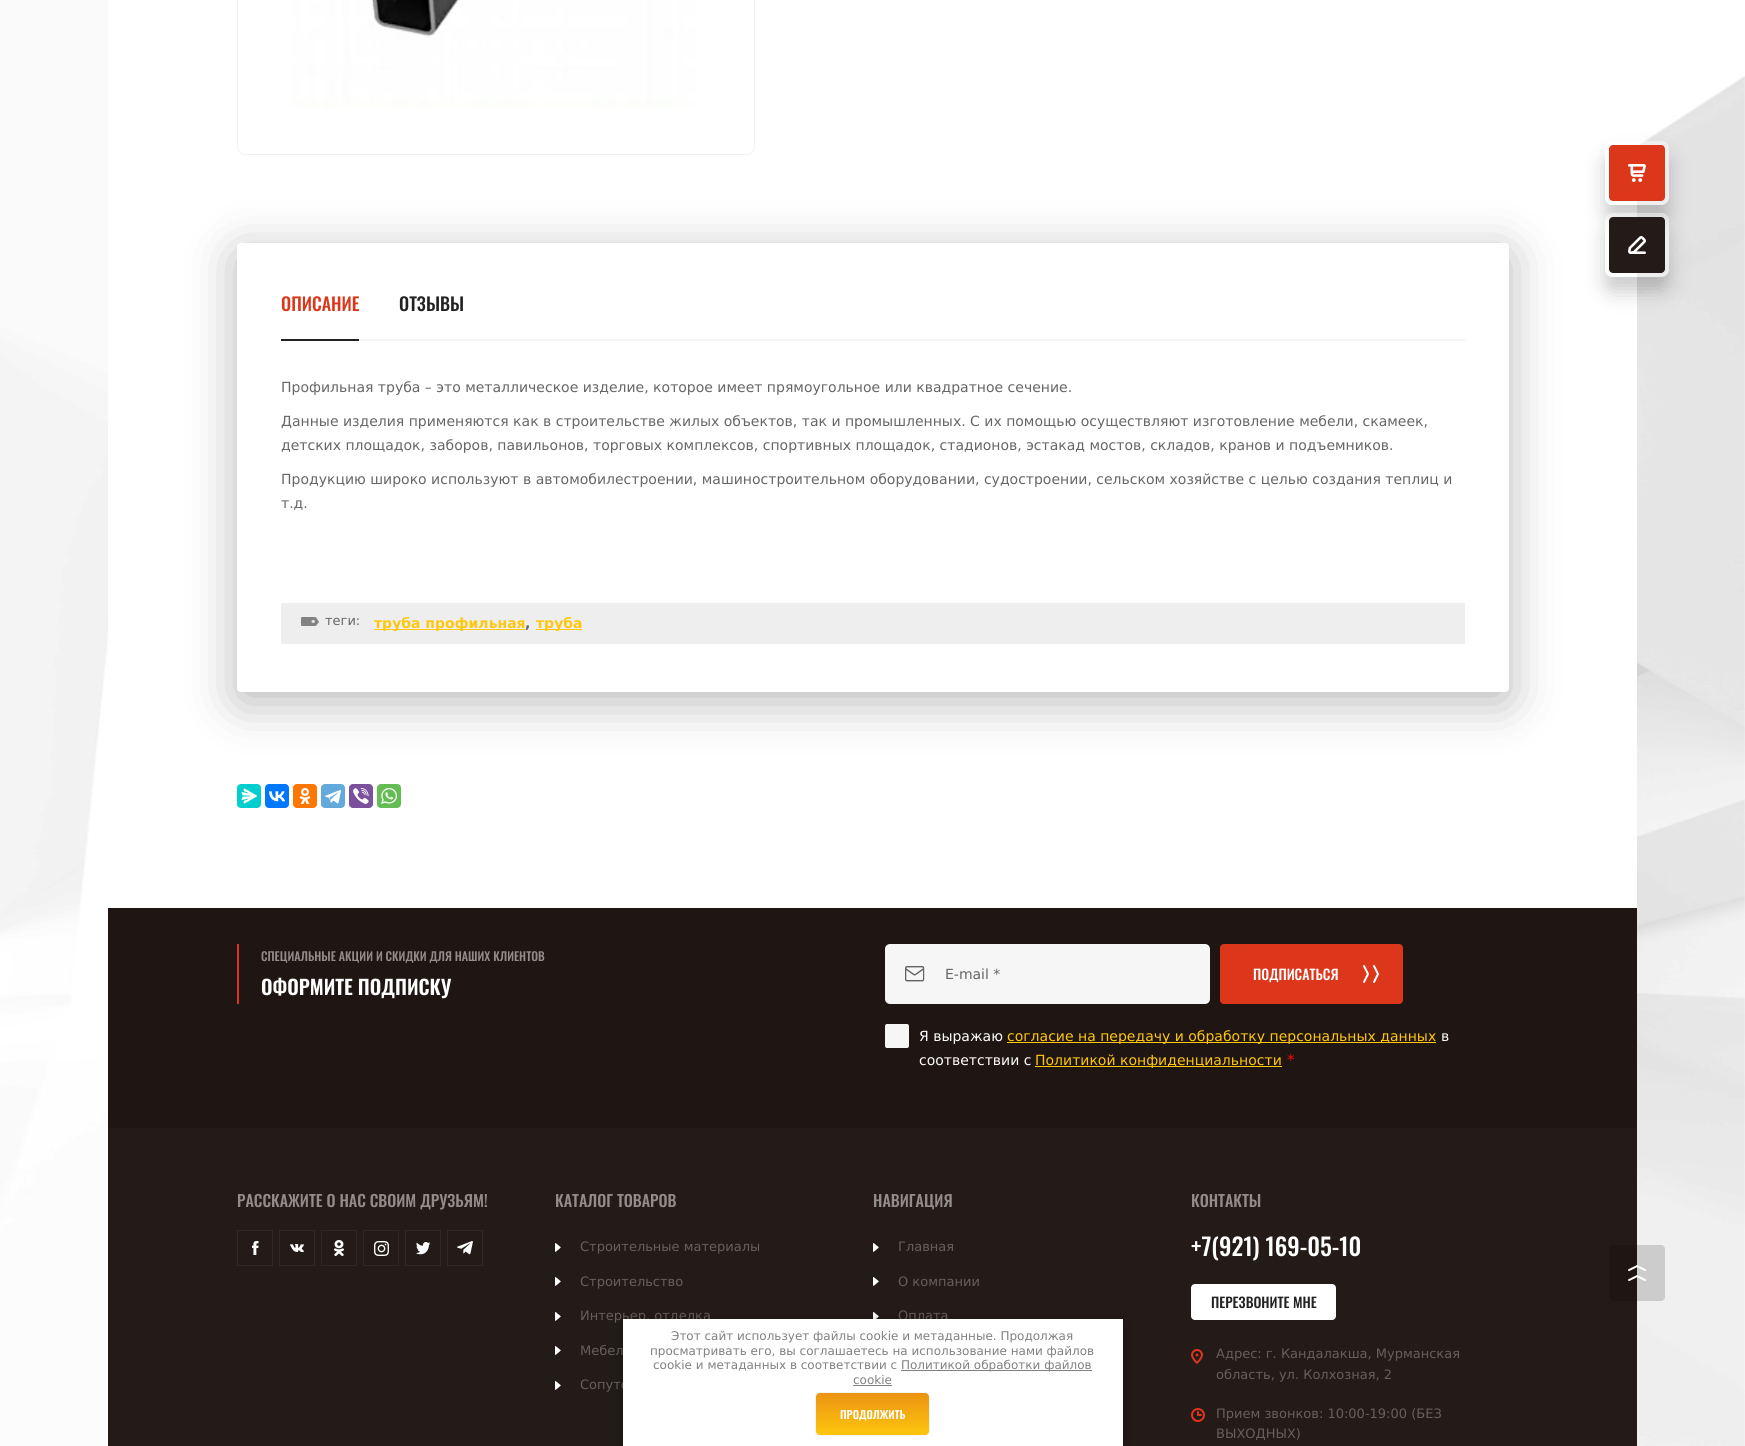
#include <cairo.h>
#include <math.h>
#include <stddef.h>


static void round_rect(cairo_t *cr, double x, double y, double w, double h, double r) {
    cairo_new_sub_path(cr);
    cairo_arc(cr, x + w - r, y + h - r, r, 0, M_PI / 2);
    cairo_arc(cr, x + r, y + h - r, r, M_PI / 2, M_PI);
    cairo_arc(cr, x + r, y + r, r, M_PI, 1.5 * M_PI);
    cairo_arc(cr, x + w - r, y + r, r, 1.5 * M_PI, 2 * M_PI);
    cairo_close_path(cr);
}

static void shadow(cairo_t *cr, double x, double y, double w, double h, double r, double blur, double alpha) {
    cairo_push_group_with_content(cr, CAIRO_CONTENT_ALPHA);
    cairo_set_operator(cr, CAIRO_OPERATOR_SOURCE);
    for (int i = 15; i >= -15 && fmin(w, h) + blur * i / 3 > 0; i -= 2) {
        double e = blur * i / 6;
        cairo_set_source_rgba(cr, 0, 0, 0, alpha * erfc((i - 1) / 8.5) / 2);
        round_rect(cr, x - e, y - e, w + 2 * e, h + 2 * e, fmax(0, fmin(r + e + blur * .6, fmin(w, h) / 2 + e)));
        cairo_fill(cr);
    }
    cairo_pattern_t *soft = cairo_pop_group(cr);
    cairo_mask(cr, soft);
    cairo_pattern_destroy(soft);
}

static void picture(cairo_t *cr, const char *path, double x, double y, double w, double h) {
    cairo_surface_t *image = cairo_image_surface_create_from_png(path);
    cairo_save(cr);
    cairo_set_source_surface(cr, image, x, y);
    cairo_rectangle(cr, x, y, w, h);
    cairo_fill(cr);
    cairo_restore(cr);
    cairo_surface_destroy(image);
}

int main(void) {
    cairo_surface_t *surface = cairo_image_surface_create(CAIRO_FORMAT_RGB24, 1745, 1446);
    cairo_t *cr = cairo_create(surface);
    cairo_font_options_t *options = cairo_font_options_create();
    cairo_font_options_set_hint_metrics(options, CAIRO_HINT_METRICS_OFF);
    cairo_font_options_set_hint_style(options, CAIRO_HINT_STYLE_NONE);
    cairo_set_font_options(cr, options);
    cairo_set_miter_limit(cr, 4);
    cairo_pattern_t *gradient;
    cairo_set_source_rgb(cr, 1, 1, 1);
    cairo_paint(cr);
    picture(cr, "img1.png", 0, 0, 1745, 1446);
    cairo_set_source_rgb(cr, 1, 1, 1);
    cairo_rectangle(cr, 108, 0, 1529, 908);
    cairo_fill(cr);
    picture(cr, "img2.png", 291, 0, 405, 108);
    round_rect(cr, 237.5, -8.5, 517, 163, 7.5);
    cairo_set_source_rgb(cr, 0.945, 0.945, 0.945);
    cairo_set_line_width(cr, 1);
    cairo_stroke(cr);
    cairo_set_source_rgb(cr, 0, 0, 0);
    shadow(cr, 237, 253, 1272, 449, 4, 25, 0.28);
    cairo_set_source_rgb(cr, 1, 1, 1);
    round_rect(cr, 237, 243, 1272, 449, 4);
    cairo_fill(cr);
    cairo_set_source_rgb(cr, 0.957, 0.957, 0.957);
    cairo_rectangle(cr, 359, 339, 1106, 2);
    cairo_fill(cr);
    cairo_select_font_face(cr, "Oswald Medium", CAIRO_FONT_SLANT_NORMAL, CAIRO_FONT_WEIGHT_NORMAL);
    cairo_set_font_size(cr, 18);
    cairo_set_source_rgb(cr, 0.863, 0.212, 0.106);
    cairo_move_to(cr, 281, 311);
    cairo_show_text(cr, "ОПИСАНИЕ");
    cairo_set_source_rgb(cr, 0.133, 0.133, 0.133);
    cairo_rectangle(cr, 281, 339, 78, 2);
    cairo_fill(cr);
    cairo_move_to(cr, 399, 311);
    cairo_show_text(cr, "ОТЗЫВЫ");
    cairo_select_font_face(cr, "DejaVu Sans", CAIRO_FONT_SLANT_NORMAL, CAIRO_FONT_WEIGHT_NORMAL);
    cairo_set_font_size(cr, 14);
    cairo_set_source_rgb(cr, 0.4, 0.4, 0.4);
    cairo_move_to(cr, 281, 392);
    cairo_show_text(cr, "Профильная труба – это металлическое изделие, которое имеет прямоугольное или квадратное сечение.");
    cairo_move_to(cr, 281, 426);
    cairo_show_text(cr, "Данные изделия применяются как в строительстве жилых объектов, так и промышленных. С их помощью осуществляют изготовление мебели, скамеек,");
    cairo_move_to(cr, 281, 450);
    cairo_show_text(cr, "детских площадок, заборов, павильонов, торговых комплексов, спортивных площадок, стадионов, эстакад мостов, складов, кранов и подъемников.");
    cairo_move_to(cr, 281, 484);
    cairo_show_text(cr, "Продукцию широко используют в автомобилестроении, машиностроительном оборудовании, судостроении, сельском хозяйстве с целью создания теплиц и");
    cairo_move_to(cr, 281, 508);
    cairo_show_text(cr, "т.д.");
    cairo_set_source_rgb(cr, 0.933, 0.933, 0.933);
    cairo_rectangle(cr, 281, 603, 1184, 41);
    cairo_fill(cr);
    picture(cr, "img3.png", 301, 617, 18, 9);
    cairo_set_font_size(cr, 13);
    cairo_set_source_rgb(cr, 0.4, 0.4, 0.4);
    cairo_move_to(cr, 325, 625);
    cairo_show_text(cr, "теги:");
    cairo_set_source_rgb(cr, 1, 0.78, 0.051);
    cairo_rectangle(cr, 374, 629, 151, 1);
    cairo_fill(cr);
    cairo_select_font_face(cr, "DejaVu Sans", CAIRO_FONT_SLANT_NORMAL, CAIRO_FONT_WEIGHT_BOLD);
    cairo_set_font_size(cr, 14);
    cairo_move_to(cr, 374, 628);
    cairo_show_text(cr, "труба профильная");
    cairo_set_source_rgb(cr, 0.4, 0.4, 0.4);
    cairo_move_to(cr, 525, 628);
    cairo_show_text(cr, ",");
    cairo_set_source_rgb(cr, 1, 0.78, 0.051);
    cairo_rectangle(cr, 536, 629, 46, 1);
    cairo_fill(cr);
    cairo_move_to(cr, 536, 628);
    cairo_show_text(cr, "труба");
    cairo_set_source_rgb(cr, 0.012, 0.808, 0.808);
    round_rect(cr, 237, 784, 24, 24, 4);
    cairo_fill(cr);
    picture(cr, "img4.png", 241, 788, 16, 16);
    cairo_set_source_rgb(cr, 0, 0.467, 1);
    round_rect(cr, 265, 784, 24, 24, 4);
    cairo_fill(cr);
    picture(cr, "img5.png", 269, 791, 16, 11);
    cairo_set_source_rgb(cr, 1, 0.467, 0);
    round_rect(cr, 293, 784, 24, 24, 4);
    cairo_fill(cr);
    picture(cr, "img6.png", 299, 788, 12, 16);
    cairo_set_source_rgb(cr, 0.392, 0.663, 0.863);
    round_rect(cr, 321, 784, 24, 24, 4);
    cairo_fill(cr);
    picture(cr, "img7.png", 325, 790, 16, 14);
    cairo_set_source_rgb(cr, 0.482, 0.318, 0.616);
    round_rect(cr, 349, 784, 24, 24, 4);
    cairo_fill(cr);
    picture(cr, "img8.png", 353, 788, 16, 16);
    cairo_set_source_rgb(cr, 0.396, 0.737, 0.329);
    round_rect(cr, 377, 784, 24, 24, 4);
    cairo_fill(cr);
    picture(cr, "img9.png", 381, 788, 16, 16);
    cairo_set_source_rgb(cr, 0.122, 0.086, 0.078);
    cairo_rectangle(cr, 108, 908, 1529, 220);
    cairo_fill(cr);
    cairo_set_source_rgb(cr, 0.863, 0.212, 0.106);
    cairo_rectangle(cr, 237, 944, 2, 60);
    cairo_fill(cr);
    cairo_select_font_face(cr, "Oswald Medium", CAIRO_FONT_SLANT_NORMAL, CAIRO_FONT_WEIGHT_NORMAL);
    cairo_set_font_size(cr, 12);
    cairo_set_source_rgb(cr, 0.573, 0.553, 0.549);
    cairo_move_to(cr, 261, 961);
    cairo_show_text(cr, "СПЕЦИАЛЬНЫЕ АКЦИИ И СКИДКИ ДЛЯ НАШИХ КЛИЕНТОВ");
    cairo_select_font_face(cr, "Oswald SemiBold", CAIRO_FONT_SLANT_NORMAL, CAIRO_FONT_WEIGHT_NORMAL);
    cairo_set_font_size(cr, 20);
    cairo_set_source_rgb(cr, 1, 1, 1);
    cairo_move_to(cr, 261, 995);
    cairo_show_text(cr, "ОФОРМИТЕ ПОДПИСКУ");
    cairo_set_source_rgb(cr, 0.961, 0.961, 0.961);
    round_rect(cr, 885, 944, 325, 60, 5);
    cairo_fill(cr);
    picture(cr, "img10.png", 905, 966, 20, 16);
    cairo_select_font_face(cr, "DejaVu Sans", CAIRO_FONT_SLANT_NORMAL, CAIRO_FONT_WEIGHT_NORMAL);
    cairo_set_font_size(cr, 14);
    cairo_set_source_rgb(cr, 0.4, 0.4, 0.4);
    cairo_move_to(cr, 945, 979);
    cairo_show_text(cr, "E-mail *");
    cairo_set_source_rgb(cr, 0.863, 0.212, 0.106);
    round_rect(cr, 1220, 944, 183, 60, 4);
    cairo_fill(cr);
    cairo_select_font_face(cr, "Oswald Medium", CAIRO_FONT_SLANT_NORMAL, CAIRO_FONT_WEIGHT_NORMAL);
    cairo_set_source_rgb(cr, 1, 1, 1);
    cairo_move_to(cr, 1253, 980);
    cairo_show_text(cr, "ПОДПИСАТЬСЯ");
    picture(cr, "img11.png", 1363, 965, 16, 18);
    cairo_set_source_rgb(cr, 0.961, 0.961, 0.961);
    round_rect(cr, 885, 1024, 24, 24, 2);
    cairo_fill(cr);
    cairo_select_font_face(cr, "DejaVu Sans", CAIRO_FONT_SLANT_NORMAL, CAIRO_FONT_WEIGHT_NORMAL);
    cairo_set_source_rgb(cr, 1, 1, 1);
    cairo_move_to(cr, 919, 1041);
    cairo_show_text(cr, "Я выражаю");
    cairo_set_source_rgb(cr, 1, 0.78, 0.051);
    cairo_rectangle(cr, 1007, 1042, 429, 1);
    cairo_fill(cr);
    cairo_move_to(cr, 1007, 1041);
    cairo_show_text(cr, "согласие на передачу и обработку персональных данных");
    cairo_set_source_rgb(cr, 1, 1, 1);
    cairo_move_to(cr, 1441, 1041);
    cairo_show_text(cr, "в");
    cairo_move_to(cr, 919, 1065);
    cairo_show_text(cr, "соответствии с");
    cairo_set_source_rgb(cr, 1, 0.78, 0.051);
    cairo_rectangle(cr, 1035, 1066, 247, 1);
    cairo_fill(cr);
    cairo_move_to(cr, 1035, 1065);
    cairo_show_text(cr, "Политикой конфиденциальности");
    cairo_set_font_size(cr, 15);
    cairo_set_source_rgb(cr, 1, 0, 0);
    cairo_move_to(cr, 1287, 1065);
    cairo_show_text(cr, "*");
    cairo_set_source_rgb(cr, 0.863, 0.212, 0.106);
    round_rect(cr, 1609, 145, 56, 56, 4);
    cairo_fill(cr);
    cairo_save(cr);
    cairo_set_fill_rule(cr, CAIRO_FILL_RULE_EVEN_ODD);
    cairo_new_path(cr);
    cairo_move_to(cr, 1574, 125);
    cairo_line_to(cr, 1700, 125);
    cairo_line_to(cr, 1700, 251);
    cairo_line_to(cr, 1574, 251);
    cairo_close_path(cr);
    cairo_move_to(cr, 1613, 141);
    cairo_line_to(cr, 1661, 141);
    cairo_curve_to(cr, 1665.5, 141, 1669, 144.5, 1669, 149);
    cairo_line_to(cr, 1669, 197);
    cairo_curve_to(cr, 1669, 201.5, 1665.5, 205, 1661, 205);
    cairo_line_to(cr, 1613, 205);
    cairo_curve_to(cr, 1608.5, 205, 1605, 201.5, 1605, 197);
    cairo_line_to(cr, 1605, 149);
    cairo_curve_to(cr, 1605, 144.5, 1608.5, 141, 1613, 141);
    cairo_close_path(cr);
    cairo_clip(cr);
    cairo_set_source_rgb(cr, 0, 0, 0);
    shadow(cr, 1605, 156, 64, 64, 8, 10, 0.2);
    cairo_restore(cr);
    picture(cr, "img12.png", 1628, 164, 18, 18);
    round_rect(cr, 1607, 143, 60, 60, 6);
    cairo_set_source_rgba(cr, 1, 1, 1, 0.4);
    cairo_set_line_width(cr, 4);
    cairo_stroke(cr);
    cairo_set_source_rgb(cr, 0.141, 0.102, 0.094);
    round_rect(cr, 1609, 217, 56, 56, 4);
    cairo_fill(cr);
    cairo_save(cr);
    cairo_set_fill_rule(cr, CAIRO_FILL_RULE_EVEN_ODD);
    cairo_new_path(cr);
    cairo_move_to(cr, 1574, 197);
    cairo_line_to(cr, 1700, 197);
    cairo_line_to(cr, 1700, 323);
    cairo_line_to(cr, 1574, 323);
    cairo_close_path(cr);
    cairo_move_to(cr, 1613, 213);
    cairo_line_to(cr, 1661, 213);
    cairo_curve_to(cr, 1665.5, 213, 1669, 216.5, 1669, 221);
    cairo_line_to(cr, 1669, 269);
    cairo_curve_to(cr, 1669, 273.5, 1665.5, 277, 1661, 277);
    cairo_line_to(cr, 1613, 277);
    cairo_curve_to(cr, 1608.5, 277, 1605, 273.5, 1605, 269);
    cairo_line_to(cr, 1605, 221);
    cairo_curve_to(cr, 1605, 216.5, 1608.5, 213, 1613, 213);
    cairo_close_path(cr);
    cairo_clip(cr);
    cairo_set_source_rgb(cr, 0, 0, 0);
    shadow(cr, 1605, 228, 64, 64, 8, 10, 0.2);
    cairo_restore(cr);
    picture(cr, "img13.png", 1628, 236, 18, 18);
    round_rect(cr, 1607, 215, 60, 60, 6);
    cairo_set_source_rgba(cr, 1, 1, 1, 0.4);
    cairo_stroke(cr);
    cairo_set_source_rgb(cr, 0.141, 0.102, 0.094);
    cairo_rectangle(cr, 108, 1128, 1529, 318);
    cairo_fill(cr);
    cairo_set_source_rgba(cr, 0, 0, 0, 0.15);
    round_rect(cr, 1609, 1245, 56, 56, 4);
    cairo_fill(cr);
    picture(cr, "img14.png", 1628, 1265, 18, 16);
    cairo_select_font_face(cr, "Oswald Medium", CAIRO_FONT_SLANT_NORMAL, CAIRO_FONT_WEIGHT_NORMAL);
    cairo_set_font_size(cr, 16);
    cairo_set_source_rgb(cr, 0.573, 0.553, 0.549);
    cairo_move_to(cr, 237, 1207);
    cairo_show_text(cr, "РАССКАЖИТЕ О НАС СВОИМ ДРУЗЬЯМ!");
    picture(cr, "img15.png", 237, 1230, 36, 36);
    picture(cr, "img16.png", 279, 1230, 36, 36);
    picture(cr, "img17.png", 321, 1230, 36, 36);
    picture(cr, "img18.png", 363, 1230, 36, 36);
    picture(cr, "img19.png", 405, 1230, 36, 36);
    picture(cr, "img20.png", 447, 1230, 36, 36);
    cairo_move_to(cr, 555, 1207);
    cairo_show_text(cr, "КАТАЛОГ ТОВАРОВ");
    picture(cr, "img21.png", 555, 1243, 6, 9);
    cairo_select_font_face(cr, "DejaVu Sans", CAIRO_FONT_SLANT_NORMAL, CAIRO_FONT_WEIGHT_NORMAL);
    cairo_set_font_size(cr, 13);
    cairo_set_source_rgb(cr, 0.4, 0.373, 0.365);
    cairo_move_to(cr, 580, 1251);
    cairo_show_text(cr, "Строительные материалы");
    picture(cr, "img21.png", 555, 1277, 6, 9);
    cairo_move_to(cr, 580, 1286);
    cairo_show_text(cr, "Строительство");
    picture(cr, "img21.png", 555, 1312, 6, 9);
    cairo_move_to(cr, 580, 1320);
    cairo_show_text(cr, "Интерьер, отделка");
    picture(cr, "img21.png", 555, 1346, 6, 9);
    cairo_move_to(cr, 580, 1355);
    cairo_show_text(cr, "Мебел");
    picture(cr, "img21.png", 555, 1381, 6, 9);
    cairo_move_to(cr, 580, 1389);
    cairo_show_text(cr, "Сопутс");
    cairo_select_font_face(cr, "Oswald Medium", CAIRO_FONT_SLANT_NORMAL, CAIRO_FONT_WEIGHT_NORMAL);
    cairo_set_font_size(cr, 16);
    cairo_set_source_rgb(cr, 0.573, 0.553, 0.549);
    cairo_move_to(cr, 873, 1207);
    cairo_show_text(cr, "НАВИГАЦИЯ");
    picture(cr, "img21.png", 873, 1243, 6, 9);
    cairo_select_font_face(cr, "DejaVu Sans", CAIRO_FONT_SLANT_NORMAL, CAIRO_FONT_WEIGHT_NORMAL);
    cairo_set_font_size(cr, 13);
    cairo_set_source_rgb(cr, 0.4, 0.373, 0.365);
    cairo_move_to(cr, 898, 1251);
    cairo_show_text(cr, "Главная");
    picture(cr, "img21.png", 873, 1277, 6, 9);
    cairo_move_to(cr, 898, 1286);
    cairo_show_text(cr, "О компании");
    picture(cr, "img22.png", 873, 1312, 6, 7);
    cairo_move_to(cr, 898, 1320);
    cairo_show_text(cr, "Оплата");
    cairo_select_font_face(cr, "Oswald Medium", CAIRO_FONT_SLANT_NORMAL, CAIRO_FONT_WEIGHT_NORMAL);
    cairo_set_font_size(cr, 16);
    cairo_set_source_rgb(cr, 0.573, 0.553, 0.549);
    cairo_move_to(cr, 1191, 1207);
    cairo_show_text(cr, "КОНТАКТЫ");
    cairo_set_font_size(cr, 24);
    cairo_set_source_rgb(cr, 1, 1, 1);
    cairo_move_to(cr, 1191, 1256);
    cairo_show_text(cr, "+7(921) 169-05-10");
    round_rect(cr, 1191, 1284, 145, 36, 4);
    cairo_fill(cr);
    cairo_set_font_size(cr, 14);
    cairo_set_source_rgb(cr, 0.133, 0.133, 0.133);
    cairo_move_to(cr, 1211, 1308);
    cairo_show_text(cr, "ПЕРЕЗВОНИТЕ МНЕ");
    picture(cr, "img23.png", 1191, 1349, 12, 15);
    cairo_select_font_face(cr, "DejaVu Sans", CAIRO_FONT_SLANT_NORMAL, CAIRO_FONT_WEIGHT_NORMAL);
    cairo_set_font_size(cr, 13);
    cairo_set_source_rgb(cr, 0.4, 0.373, 0.365);
    cairo_move_to(cr, 1216, 1358);
    cairo_show_text(cr, "Адрес: г. Кандалакша, Мурманская");
    cairo_move_to(cr, 1216, 1379);
    cairo_show_text(cr, "область, ул. Колхозная, 2");
    picture(cr, "img24.png", 1191, 1408, 14, 14);
    cairo_move_to(cr, 1216, 1418);
    cairo_show_text(cr, "Прием звонков: 10:00-19:00 (БЕЗ");
    cairo_move_to(cr, 1216, 1438);
    cairo_show_text(cr, "ВЫХОДНЫХ)");
    cairo_set_source_rgb(cr, 0, 0, 0);
    shadow(cr, 623, 1320, 500, 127, 0, 5, 0.23);
    cairo_set_source_rgb(cr, 1, 1, 1);
    cairo_rectangle(cr, 623, 1319, 500, 127);
    cairo_fill(cr);
    cairo_set_font_size(cr, 12);
    cairo_set_source_rgb(cr, 0.502, 0.502, 0.502);
    cairo_move_to(cr, 671, 1340);
    cairo_show_text(cr, "Этот сайт использует файлы cookie и метаданные. Продолжая");
    cairo_move_to(cr, 650, 1355);
    cairo_show_text(cr, "просматривать его, вы соглашаетесь на использование нами файлов");
    cairo_move_to(cr, 653, 1369);
    cairo_show_text(cr, "cookie и метаданных в соответствии с");
    cairo_rectangle(cr, 901, 1370, 191, 1);
    cairo_fill(cr);
    cairo_move_to(cr, 901, 1369);
    cairo_show_text(cr, "Политикой обработки файлов");
    cairo_move_to(cr, 853, 1384);
    cairo_show_text(cr, "cookie");
    cairo_rectangle(cr, 853, 1385, 39, 1);
    cairo_fill(cr);
    gradient = cairo_pattern_create_linear(873, 1392, 873, 1436);
    cairo_pattern_add_color_stop_rgba(gradient, 0, 0.918, 0.573, 0.071, 1);
    cairo_pattern_add_color_stop_rgba(gradient, 1, 0.996, 0.776, 0.051, 1);
    cairo_set_source(cr, gradient);
    cairo_pattern_destroy(gradient);
    round_rect(cr, 815.5, 1392.5, 114, 43, 4.5);
    cairo_fill_preserve(cr);
    cairo_set_source_rgb(cr, 0.957, 0.957, 0.957);
    cairo_set_line_width(cr, 1);
    cairo_stroke(cr);
    cairo_select_font_face(cr, "Oswald SemiBold", CAIRO_FONT_SLANT_NORMAL, CAIRO_FONT_WEIGHT_NORMAL);
    cairo_set_font_size(cr, 11);
    cairo_set_source_rgb(cr, 1, 1, 1);
    cairo_move_to(cr, 840, 1419);
    cairo_show_text(cr, "ПРОДОЛЖИТЬ");
    cairo_surface_write_to_png(surface, "page.png");
    cairo_font_options_destroy(options);
    cairo_destroy(cr);
    cairo_surface_destroy(surface);
    return 0;
}
